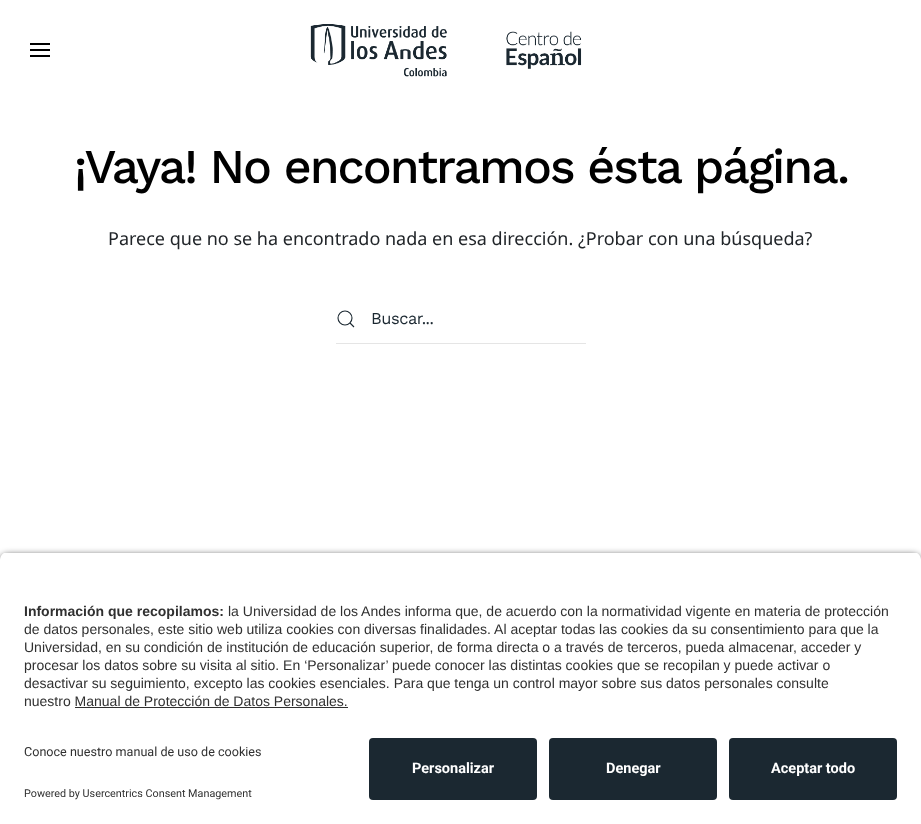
<svg xmlns="http://www.w3.org/2000/svg" width="921" height="824" viewBox="0 0 921 824">
  <defs>
    <clipPath id="clip1"><path d="M8 552H913C917.5 552 921 555.5 921 560V730H0V560C0 555.5 3.5 552 8 552Z"/></clipPath>
  </defs>
  <rect width="100%" height="100%" fill="#fff"/>
  <path d="M30 43h20v2H30z" fill="#000"/>
  <path d="M30 49h20v2H30z" fill="#000"/>
  <path d="M30 55h20v2H30z" fill="#000"/>
  <image x="310" y="24" width="137" height="53" href="img/1.png"/>
  <image x="506" y="31" width="76" height="38" href="img/2.png"/>
  <circle cx="345" cy="318" r="7" fill="none" stroke="#1b2831" stroke-width="1.1"/>
  <path d="M350 323L354 327Z" fill="none" stroke="#1b2831" stroke-width="1.1"/>
  <path d="M336 343h250v1H336z" fill="#e5e5e5"/>
  <rect y="555" width="921" height="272" rx="8" fill="#000000cc" filter="blur(3.5px)"/>
  <g clip-path="url(#clip1)">
    <path d="M0 553h921v177H0z" fill="#fff"/>
  </g>
  <path d="M75 707h273v1H75z" fill="#303030"/>
  <path d="M0 730h921v94H0z" fill="#fff"/>
  <rect x="369" y="738" width="168" height="62" rx="4" fill="#1b2831"/>
  <rect x="549" y="738" width="168" height="62" rx="4" fill="#1b2831"/>
  <rect x="729" y="738" width="168" height="62" rx="4" fill="#1b2831"/>
  <text x="74" y="183" font-family="Work Sans" font-size="48.4" font-weight="500" letter-spacing="-2" fill="#000">¡Vaya! No encontramos ésta página.</text>
  <text x="108" y="245" font-family="Noto Sans" font-size="18" fill="#212529">Parece que no se ha encontrado nada en esa dirección. ¿Probar con una búsqueda?</text>
  <text x="371" y="324" font-family="Work Sans" font-size="16.5" letter-spacing="-0.5" fill="#1b2831">Buscar...</text>
  <text x="24" y="616" font-family="Liberation Sans" font-size="14" font-weight="bold" fill="#303030">Información que recopilamos:</text>
  <g font-family="Liberation Sans" font-size="14" fill="#303030">
    <text x="228" y="616">la Universidad de los Andes informa que, de acuerdo con la normatividad vigente en materia de protección</text>
    <text x="24" y="634">de datos personales, este sitio web utiliza cookies con diversas finalidades. Al aceptar todas las cookies da su consentimiento para que la</text>
    <text x="24" y="652">Universidad, en su condición de institución de educación superior, de forma directa o a través de terceros, pueda almacenar, acceder y</text>
    <text x="24" y="670">procesar los datos sobre su visita al sitio. En ‘Personalizar’ puede conocer las distintas cookies que se recopilan y puede activar o</text>
    <text x="24" y="688">desactivar su seguimiento, excepto las cookies esenciales. Para que tenga un control mayor sobre sus datos personales consulte</text>
    <text x="24" y="706">nuestro Manual de Protección de Datos Personales.</text>
  </g>
  <text x="24" y="756" font-family="Roboto" font-size="12.6" fill="#303030">Conoce nuestro manual de uso de cookies</text>
  <text x="24" y="797" font-family="Roboto" font-size="10.8" fill="#303030">Powered by Usercentrics Consent Management</text>
  <g font-family="Roboto" font-size="14.5" font-weight="bold" fill="#fff">
    <text x="412" y="773">Personalizar</text>
    <text x="606" y="773">Denegar</text>
    <text x="771" y="773">Aceptar todo</text>
  </g>
</svg>
